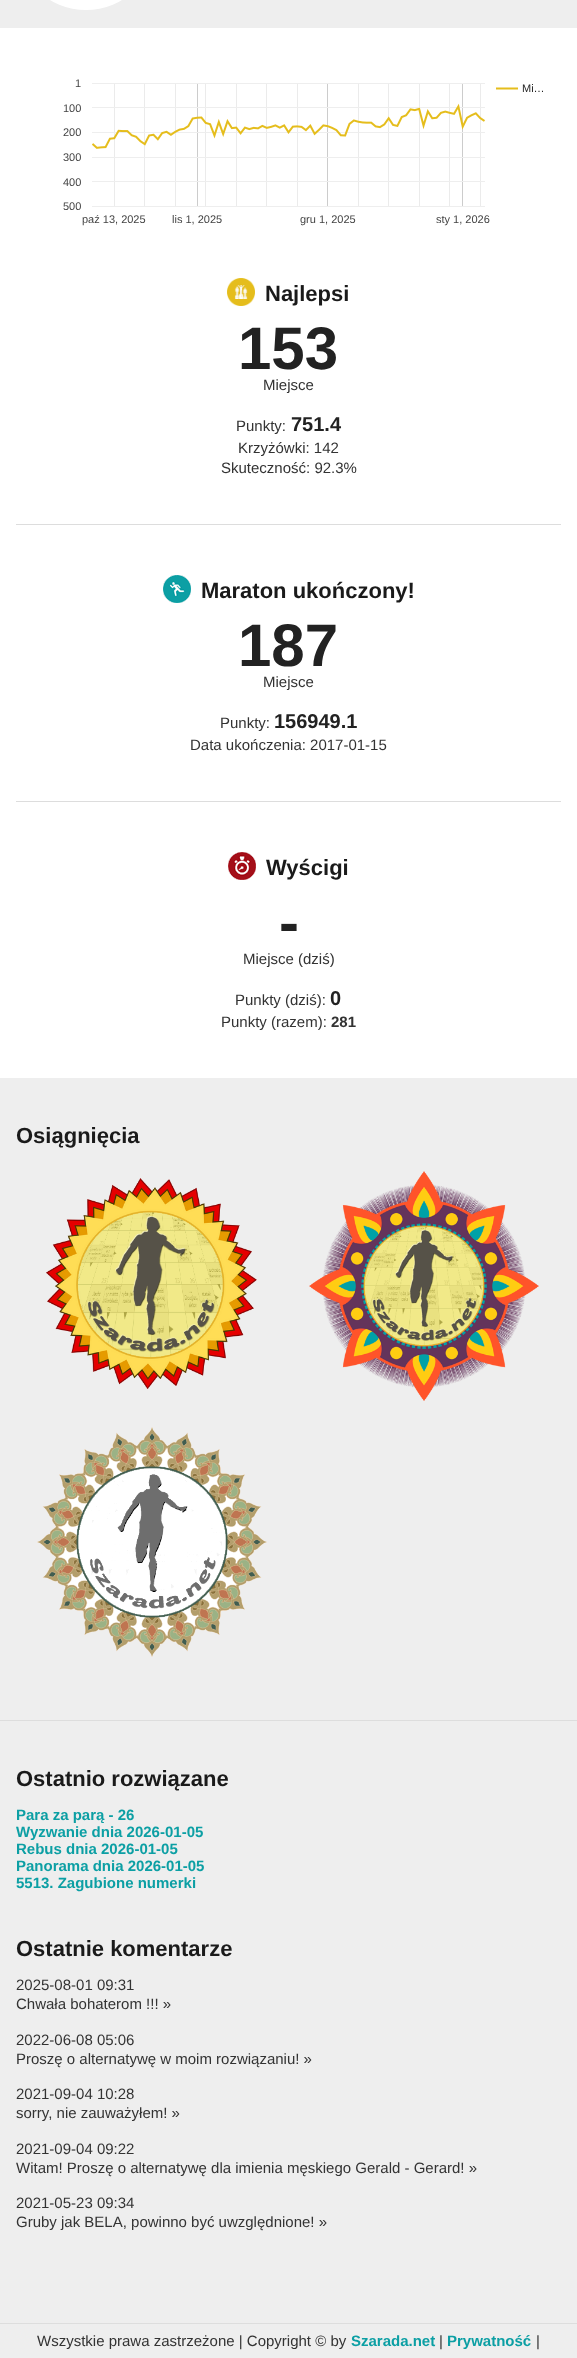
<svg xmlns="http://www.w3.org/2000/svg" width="577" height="2358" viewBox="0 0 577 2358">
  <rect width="100%" height="100%" fill="#fff"/>
  <path d="M0 0h577v28H0z" fill="#eee"/>
  <image x="50" y="0" width="72" height="10" href="img/1.png"/>
  <image x="92" y="83" width="426" height="124" href="img/2.png"/>
  <path d="M16 524h545v1H16z" fill="#ddd"/>
  <image x="227" y="278" width="28" height="28" href="img/3.png"/>
  <path d="M16 801h545v1H16z" fill="#ddd"/>
  <image x="163" y="575" width="28" height="28" href="img/4.png"/>
  <image x="228" y="852" width="28" height="28" href="img/5.png"/>
  <path d="M0 1078h577v642H0z" fill="#eee"/>
  <image x="46" y="1178" width="211" height="211" href="img/6.png"/>
  <image x="309" y="1171" width="230" height="230" href="img/7.png"/>
  <image x="37" y="1427" width="230" height="230" href="img/8.png"/>
  <path d="M0 1721h577v602H0z" fill="#eee"/>
  <path d="M0 1720h577v1H0z" fill="#ddd"/>
  <path d="M0 2324h577v34H0z" fill="#eee"/>
  <path d="M0 2323h577v1H0z" fill="#ddd"/>
  <text x="75" y="87" font-family="Liberation Sans" font-size="11" fill="#444">1</text>
  <text x="522" y="92" font-family="Liberation Sans" font-size="11" fill="#222">Mi…</text>
  <g font-family="Liberation Sans" font-size="11" fill="#444">
    <text x="63" y="112">100</text>
    <text x="63" y="136">200</text>
    <text x="63" y="161">300</text>
    <text x="63" y="186">400</text>
    <text x="63" y="210">500</text>
    <text x="82" y="223">paź 13, 2025</text>
    <text x="172" y="223">lis 1, 2025</text>
    <text x="300" y="223">gru 1, 2025</text>
    <text x="436" y="223">sty 1, 2026</text>
  </g>
  <text x="265" y="301" font-family="Liberation Sans" font-size="22" font-weight="bold" fill="#1a1a1a">Najlepsi</text>
  <text x="238" y="369" font-family="Liberation Sans" font-size="60" font-weight="bold" fill="#222">153</text>
  <g font-family="Liberation Sans" font-size="15" fill="#333">
    <text x="263" y="390">Miejsce</text>
    <text x="236" y="431">Punkty:</text>
  </g>
  <text x="291" y="431" font-family="Liberation Sans" font-size="20" font-weight="bold" fill="#222">751.4</text>
  <g font-family="Liberation Sans" font-size="15" fill="#333">
    <text x="238" y="453">Krzyżówki: 142</text>
    <text x="221" y="473">Skuteczność: 92.3%</text>
  </g>
  <text x="201" y="598" font-family="Liberation Sans" font-size="22" font-weight="bold" fill="#1a1a1a">Maraton ukończony!</text>
  <text x="238" y="666" font-family="Liberation Sans" font-size="60" font-weight="bold" fill="#222">187</text>
  <g font-family="Liberation Sans" font-size="15" fill="#333">
    <text x="263" y="687">Miejsce</text>
    <text x="220" y="728">Punkty:</text>
  </g>
  <text x="274" y="728" font-family="Liberation Sans" font-size="20" font-weight="bold" fill="#222">156949.1</text>
  <text x="190" y="750" font-family="Liberation Sans" font-size="15" fill="#333">Data ukończenia: 2017-01-15</text>
  <text x="266" y="875" font-family="Liberation Sans" font-size="22" font-weight="bold" fill="#1a1a1a">Wyścigi</text>
  <text x="279" y="943" font-family="Liberation Sans" font-size="60" font-weight="bold" fill="#222">-</text>
  <g font-family="Liberation Sans" font-size="15" fill="#333">
    <text x="243" y="964">Miejsce (dziś)</text>
    <text x="235" y="1005">Punkty (dziś):</text>
  </g>
  <text x="330" y="1005" font-family="Liberation Sans" font-size="20" font-weight="bold" fill="#222">0</text>
  <text x="221" y="1027" font-family="Liberation Sans" font-size="15" fill="#333">Punkty (razem):</text>
  <text x="331" y="1027" font-family="Liberation Sans" font-size="15" font-weight="bold" fill="#333">281</text>
  <g font-family="Liberation Sans" font-size="22" font-weight="bold" fill="#1a1a1a">
    <text x="16" y="1143">Osiągnięcia</text>
    <text x="16" y="1786">Ostatnio rozwiązane</text>
  </g>
  <g font-family="Liberation Sans" font-size="15" font-weight="bold" fill="#0c9fa4">
    <text x="16" y="1820">Para za parą - 26</text>
    <text x="16" y="1837">Wyzwanie dnia 2026-01-05</text>
    <text x="16" y="1854">Rebus dnia 2026-01-05</text>
    <text x="16" y="1871">Panorama dnia 2026-01-05</text>
    <text x="16" y="1888">5513. Zagubione numerki</text>
  </g>
  <text x="16" y="1956" font-family="Liberation Sans" font-size="22" font-weight="bold" fill="#1a1a1a">Ostatnie komentarze</text>
  <g font-family="Liberation Sans" font-size="15" fill="#333">
    <text x="16" y="1990">2025-08-01 09:31</text>
    <text x="16" y="2009">Chwała bohaterom !!! »</text>
    <text x="16" y="2045">2022-06-08 05:06</text>
    <text x="16" y="2064">Proszę o alternatywę w moim rozwiązaniu! »</text>
    <text x="16" y="2099">2021-09-04 10:28</text>
    <text x="16" y="2118">sorry, nie zauważyłem! »</text>
    <text x="16" y="2154">2021-09-04 09:22</text>
    <text x="16" y="2173">Witam! Proszę o alternatywę dla imienia męskiego Gerald - Gerard! »</text>
    <text x="16" y="2208">2021-05-23 09:34</text>
    <text x="16" y="2227">Gruby jak BELA, powinno być uwzględnione! »</text>
    <text x="37" y="2346">Wszystkie prawa zastrzeżone | Copyright © by</text>
  </g>
  <text x="351" y="2346" font-family="Liberation Sans" font-size="15" font-weight="bold" fill="#0c9fa4">Szarada.net</text>
  <text x="439" y="2346" font-family="Liberation Sans" font-size="15" fill="#333">|</text>
  <text x="447" y="2346" font-family="Liberation Sans" font-size="15" font-weight="bold" fill="#0c9fa4">Prywatność</text>
  <text x="536" y="2346" font-family="Liberation Sans" font-size="15" fill="#333">|</text>
</svg>
